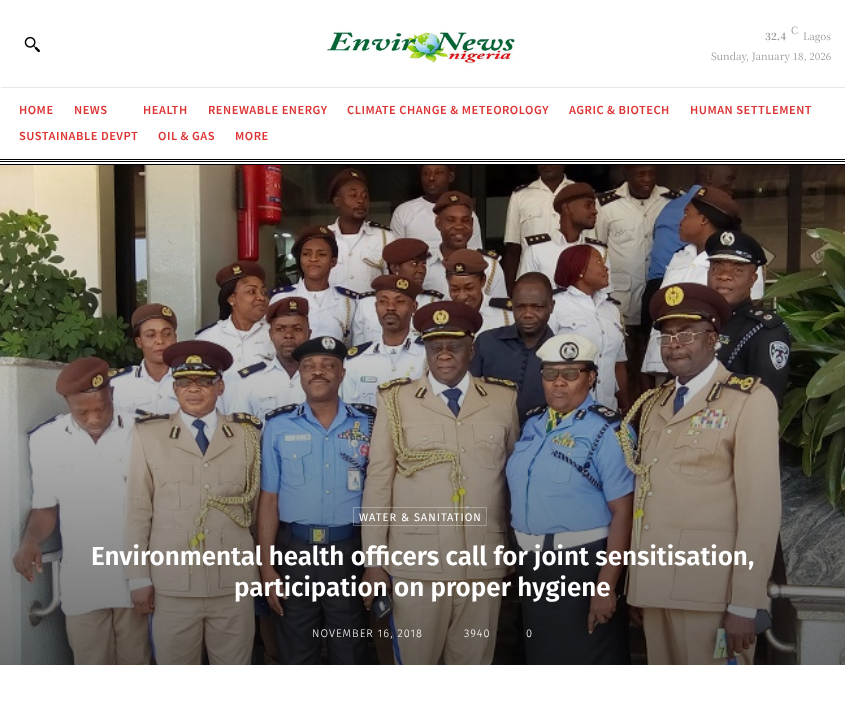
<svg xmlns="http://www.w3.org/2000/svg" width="845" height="724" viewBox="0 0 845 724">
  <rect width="100%" height="100%" fill="#fff"/>
  <image x="24" y="36" width="16" height="17" href="img/1.png"/>
  <image x="326" y="31" width="190" height="34" href="img/2.png"/>
  <path d="M1 87h844v1H1z" fill="#e8e8e8"/>
  <path d="M0 159h845v1H0z" fill="#000"/>
  <path d="M0 164h845v1H0z" fill="#000"/>
  <path d="M0 161h845v1H0z" fill="#000"/>
  <image x="0" y="165" width="845" height="500" href="img/3.png"/>
  <path d="M353.5 507.5h133v18H353.5z" fill="none" stroke="#ffffff4d"/>
  <text x="791" y="34" font-family="Noto Serif JP" font-size="10" fill="#999">C</text>
  <text x="765" y="40" font-family="Noto Serif JP" font-size="10" font-weight="bold" fill="#999">32.4</text>
  <g font-family="Noto Serif JP" font-size="10" fill="#999">
    <text x="803" y="40">Lagos</text>
    <text x="711" y="60">Sunday, January 18, 2026</text>
  </g>
  <g font-family="Noto Sans JP" font-size="11" font-weight="600" letter-spacing="0.5" fill="#d33">
    <text x="19" y="114">HOME</text>
    <text x="74" y="114">NEWS</text>
    <text x="143" y="114">HEALTH</text>
    <text x="208" y="114">RENEWABLE ENERGY</text>
    <text x="347" y="114">CLIMATE CHANGE &amp; METEOROLOGY</text>
    <text x="569" y="114">AGRIC &amp; BIOTECH</text>
    <text x="690" y="114">HUMAN SETTLEMENT</text>
    <text x="19" y="140">SUSTAINABLE DEVPT</text>
    <text x="158" y="140">OIL &amp; GAS</text>
    <text x="235" y="140">MORE</text>
  </g>
  <text x="359" y="521" font-family="Fira Sans" font-size="11" letter-spacing="1" fill="#fff">WATER &amp; SANITATION</text>
  <g font-family="Fira Sans" font-size="26" font-weight="600" fill="#fff">
    <text x="91" y="565">Environmental health officers call for joint sensitisation,</text>
    <text x="234" y="596">participation on proper hygiene</text>
  </g>
  <g font-family="Fira Sans" font-size="11" font-weight="300" letter-spacing="1" fill="#fff">
    <text x="312" y="637">NOVEMBER 16, 2018</text>
    <text x="464" y="637">3940</text>
    <text x="526" y="637">0</text>
  </g>
</svg>
